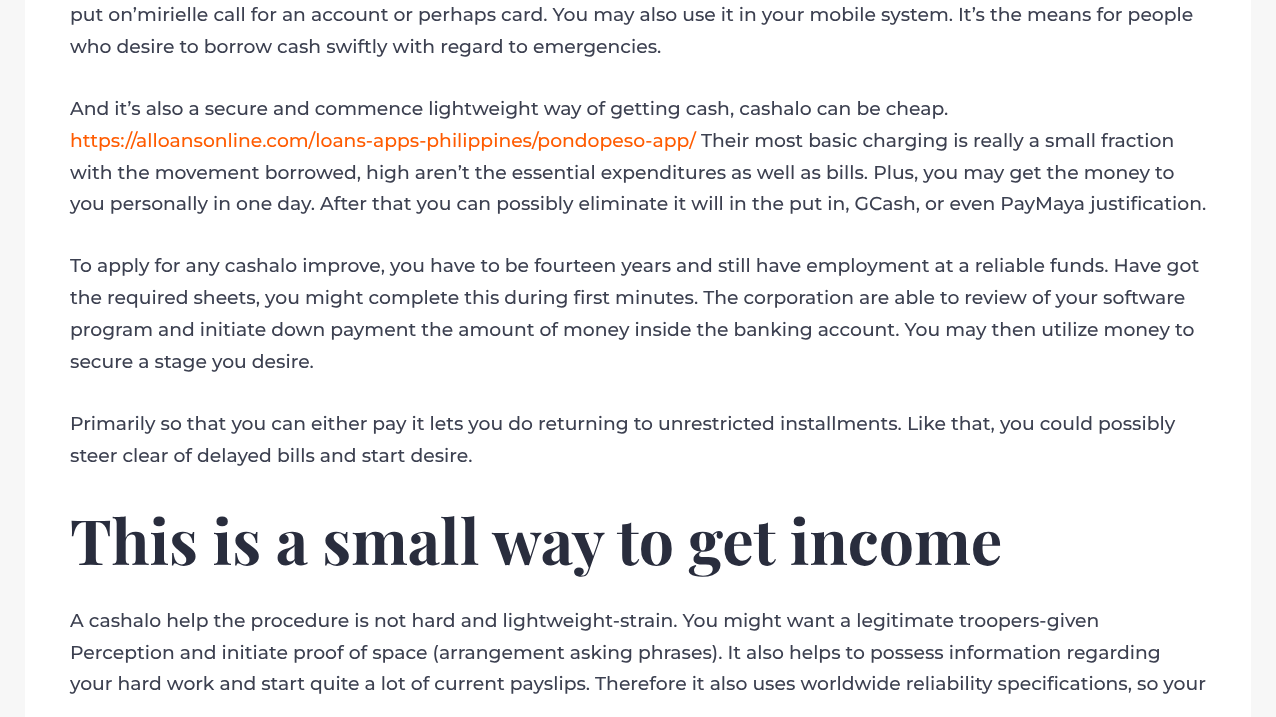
<svg xmlns="http://www.w3.org/2000/svg" width="1276" height="717" viewBox="0 0 1276 717">
  <rect width="100%" height="100%" fill="#f7f7f7"/>
  <path d="M25 0h1226v717H25z" fill="#fff"/>
  <g font-family="Montserrat" font-size="18.75" font-weight="500" fill="#3c4050">
    <text x="70" y="21">put on’mirielle call for an account or perhaps card. You may also use it in your mobile system. It’s the means for people</text>
    <text x="70" y="53">who desire to borrow cash swiftly with regard to emergencies.</text>
    <text x="70" y="115">And it’s also a secure and commence lightweight way of getting cash, cashalo can be cheap.</text>
  </g>
  <text x="70" y="147" font-family="Montserrat" font-size="18.75" font-weight="500" fill="#ff5b00">https://alloansonline.com/loans-apps-philippines/pondopeso-app/</text>
  <g font-family="Montserrat" font-size="18.75" font-weight="500" fill="#3c4050">
    <text x="701" y="147">Their most basic charging is really a small fraction</text>
    <text x="70" y="179">with the movement borrowed, high aren’t the essential expenditures as well as bills. Plus, you may get the money to</text>
    <text x="70" y="210">you personally in one day. After that you can possibly eliminate it will in the put in, GCash, or even PayMaya justification.</text>
    <text x="70" y="272">To apply for any cashalo improve, you have to be fourteen years and still have employment at a reliable funds. Have got</text>
    <text x="70" y="304">the required sheets, you might complete this during first minutes. The corporation are able to review of your software</text>
    <text x="70" y="336">program and initiate down payment the amount of money inside the banking account. You may then utilize money to</text>
    <text x="70" y="368">secure a stage you desire.</text>
    <text x="70" y="430">Primarily so that you can either pay it lets you do returning to unrestricted installments. Like that, you could possibly</text>
    <text x="70" y="462">steer clear of delayed bills and start desire.</text>
  </g>
  <text x="70" y="565" font-family="Playfair Display" font-size="62.5" font-weight="bold" fill="#292d3d">This is a small way to get income</text>
  <g font-family="Montserrat" font-size="18.75" font-weight="500" fill="#3c4050">
    <text x="70" y="627">A cashalo help the procedure is not hard and lightweight-strain. You might want a legitimate troopers-given</text>
    <text x="70" y="659">Perception and initiate proof of space (arrangement asking phrases). It also helps to possess information regarding</text>
    <text x="70" y="690">your hard work and start quite a lot of current payslips. Therefore it also uses worldwide reliability specifications, so your</text>
  </g>
</svg>
